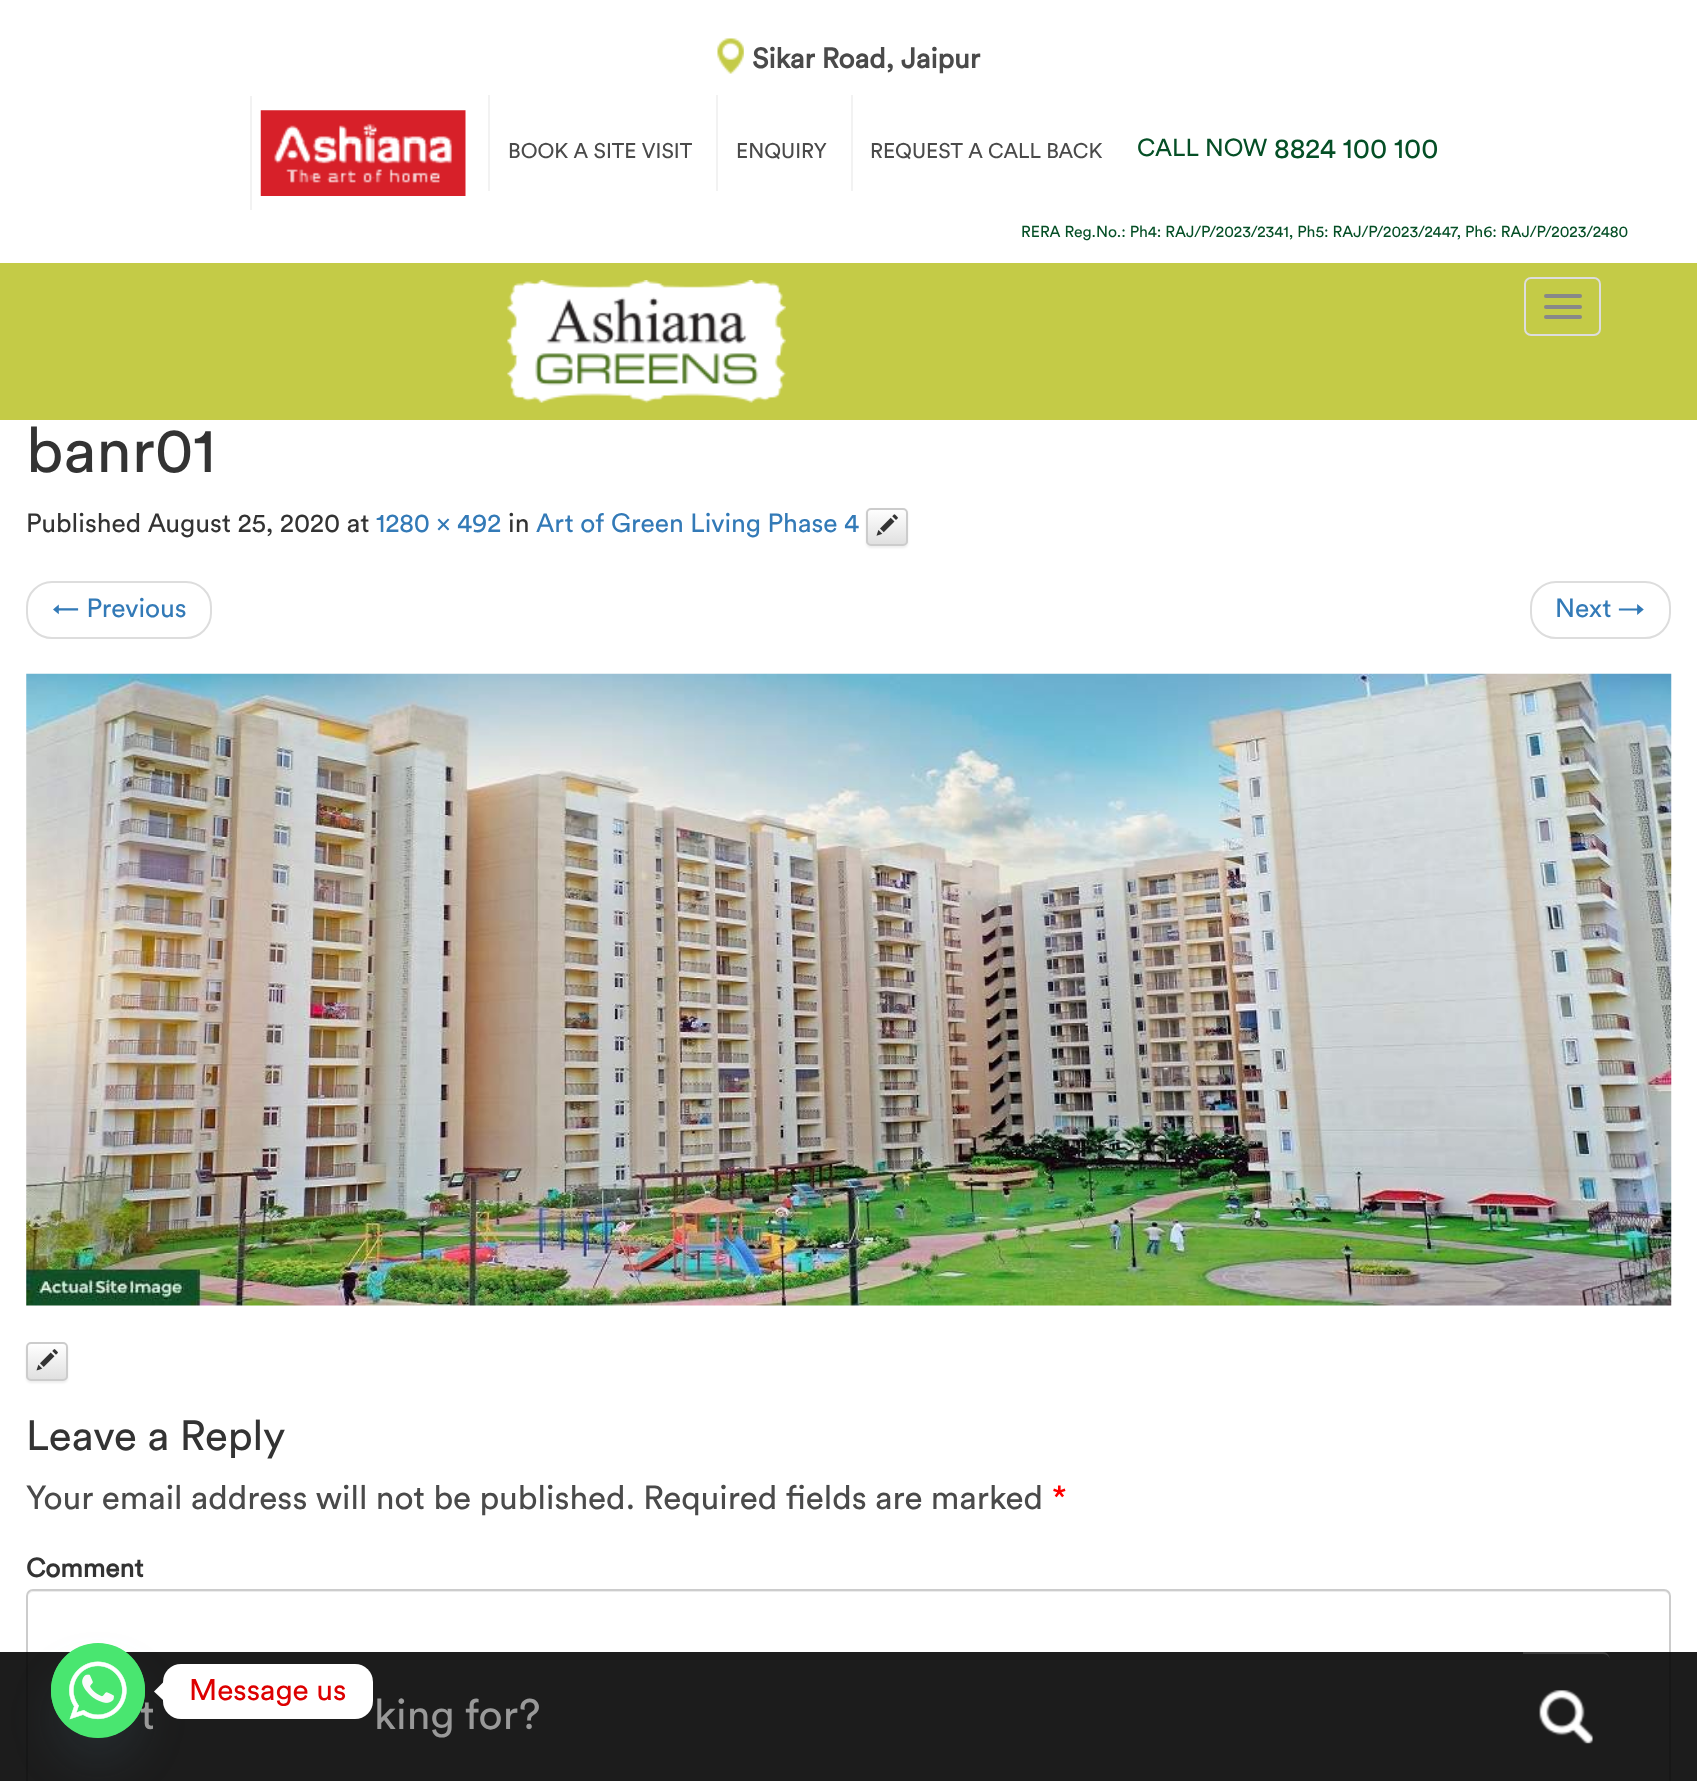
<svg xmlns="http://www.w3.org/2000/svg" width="1697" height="1781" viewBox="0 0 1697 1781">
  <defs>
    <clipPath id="clip1"><rect x="866" y="508" width="42" height="38" rx="5"/></clipPath>
    <linearGradient id="g1" gradientUnits="userSpaceOnUse" x1="887" y1="509" x2="887" y2="544"><stop offset="0" stop-color="#fff"/><stop offset="1" stop-color="#e0e0e0"/></linearGradient>
    <clipPath id="clip2"><rect x="26" y="1342" width="42" height="39" rx="5"/></clipPath>
    <linearGradient id="g2" gradientUnits="userSpaceOnUse" x1="47" y1="1344" x2="47" y2="1379"><stop offset="0" stop-color="#fff"/><stop offset="1" stop-color="#e0e0e0"/></linearGradient>
  </defs>
  <rect width="100%" height="100%" fill="#fff"/>
  <image x="717" y="38" width="27" height="36" href="img/1.png"/>
  <path d="M250 96h2v114H250z" fill="#f2f2f2"/>
  <image x="260" y="110" width="206" height="86" href="img/2.png"/>
  <path d="M488 95h2v96H488z" fill="#f2f2f2"/>
  <path d="M716 95h2v96H716z" fill="#f2f2f2"/>
  <path d="M851 95h2v96H851z" fill="#f2f2f2"/>
  <path d="M0 263h1697v157H0z" fill="#c4cb47"/>
  <image x="507" y="280" width="279" height="123" href="img/3.png"/>
  <rect x="1525" y="278" width="75" height="57" rx="6" fill="none" stroke="#ddd" stroke-width="2"/>
  <rect x="1544" y="294" width="38" height="4" rx="2" fill="#888"/>
  <rect x="1544" y="305" width="38" height="4" rx="2" fill="#888"/>
  <rect x="1544" y="315" width="38" height="4" rx="2" fill="#888"/>
  <rect x="866" y="509" width="42" height="39" rx="5" fill="#00000012" filter="blur(1px)"/>
  <g clip-path="url(#clip1)">
    <path d="M866 509h42v35H866z" fill="url(#g1)"/>
  </g>
  <path d="M872 511H903.5C907 512 906 516.5 906 518.5V542.5C906.5 542 907 541 907 540V513C907 511 905 509 903 509H872C870 509 868 511 868 513V514C868 513 870 511 872 511Z" fill="#ffffff26"/>
  <rect x="867" y="509" width="40" height="36" rx="4" fill="none" stroke="#ccc" stroke-width="2"/>
  <image x="876" y="514" width="22" height="22" href="img/4.png"/>
  <rect x="27" y="582" width="184" height="56" rx="25" fill="none" stroke="#ddd" stroke-width="2"/>
  <rect x="1531" y="582" width="139" height="56" rx="25" fill="none" stroke="#ddd" stroke-width="2"/>
  <image x="26" y="673" width="1646" height="633" href="img/5.png"/>
  <rect x="26" y="1344" width="42" height="39" rx="5" fill="#00000012" filter="blur(1px)"/>
  <g clip-path="url(#clip2)">
    <path d="M26 1344h42v35H26z" fill="url(#g2)"/>
  </g>
  <path d="M32 1346H58C60.5 1346 66 1345 66 1349V1377.5C66.5 1377 67 1376 67 1375V1348C67 1346 65 1344 63 1344H32C30 1344 28 1346 28 1348V1349C28 1347 30 1346 32 1346Z" fill="#ffffff26"/>
  <rect x="27" y="1343" width="40" height="37" rx="4" fill="none" stroke="#ccc" stroke-width="2"/>
  <image x="36" y="1349" width="22" height="22" href="img/6.png"/>
  <path d="M33 1592H1664C1667 1592 1670 1595 1670 1598C1670 1595 1669 1591 1665 1591H33C29 1591 28 1595 28 1598C28 1595 30 1592 33 1592Z" fill="#ececec"/>
  <rect x="27" y="1590" width="1643" height="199" rx="6" fill="none" stroke="#ccc" stroke-width="2"/>
  <path d="M0 1652h1697v129H0z" fill="#030303e6"/>
  <rect x="51" y="1671" width="94" height="95" rx="47" fill="#49687e29" filter="blur(21px)"/>
  <rect x="163" y="1664" width="210" height="55" rx="18" fill="#fff"/>
  <path d="M163 1682.5V1700L154 1691.5Z" fill="#fff"/>
  <image x="1539" y="1690" width="54" height="54" href="img/8.png"/>
  <path d="M1523 1652V1654H1603C1607 1654 1610 1657 1610 1661C1610 1657 1608 1652 1603 1652Z" fill="#3d3d3d"/>
  <text x="752" y="68" font-family="Circular" font-size="28" font-weight="bold" fill="#4a4a4a">Sikar Road, Jaipur</text>
  <g font-family="Circular" font-size="21" fill="#4a4a4a">
    <text x="508" y="158">BOOK A SITE VISIT</text>
    <text x="736" y="158">ENQUIRY</text>
    <text x="870" y="158">REQUEST A CALL BACK</text>
  </g>
  <text x="1137" y="156" font-family="Circular" font-size="24.5" fill="#054f26">CALL NOW</text>
  <text x="1274" y="158" font-family="Circular" font-size="28" fill="#054f26">8824 100 100</text>
  <text x="1021" y="237" font-family="Circular" font-size="15.75" fill="#054f26">RERA Reg.No.: Ph4: RAJ/P/2023/2341, Ph5: RAJ/P/2023/2447, Ph6: RAJ/P/2023/2480</text>
  <text x="26" y="472" font-family="Circular" font-size="63" fill="#333">banr01</text>
  <text x="26" y="532" font-family="Circular" font-size="26.25" fill="#333">Published August 25, 2020 at</text>
  <text x="376" y="532" font-family="Circular" font-size="26.25" fill="#337ab7">1280 × 492</text>
  <text x="508" y="532" font-family="Circular" font-size="26.25" fill="#333">in</text>
  <g font-family="Circular" font-size="26.25" fill="#337ab7">
    <text x="536" y="532">Art of Green Living Phase 4</text>
    <text x="53" y="617">← Previous</text>
    <text x="1555" y="617">Next →</text>
  </g>
  <text x="26" y="1450" font-family="Circular" font-size="42" fill="#333">Leave a Reply</text>
  <text x="26" y="1509" font-family="Circular" font-size="33.25" fill="#4a4a4a">Your email address will not be published. Required fields are marked</text>
  <text x="1052" y="1509" font-family="Circular" font-size="33.25" fill="#f00">*</text>
  <text x="26" y="1577" font-family="Circular" font-size="26.25" font-weight="bold" fill="#333">Comment</text>
  <text x="189" y="1700" font-family="Circular" font-size="29.75" fill="#d00">Message us</text>
  <text x="140" y="1729" font-family="Circular" font-size="42" fill="#999">t</text>
  <rect x="51" y="1643" width="94" height="95" rx="47" fill="#49e670"/>
  <image x="51" y="1643" width="94" height="95" href="img/7.png"/>
  <text x="374" y="1729" font-family="Circular" font-size="42" fill="#999">king for?</text>
</svg>
